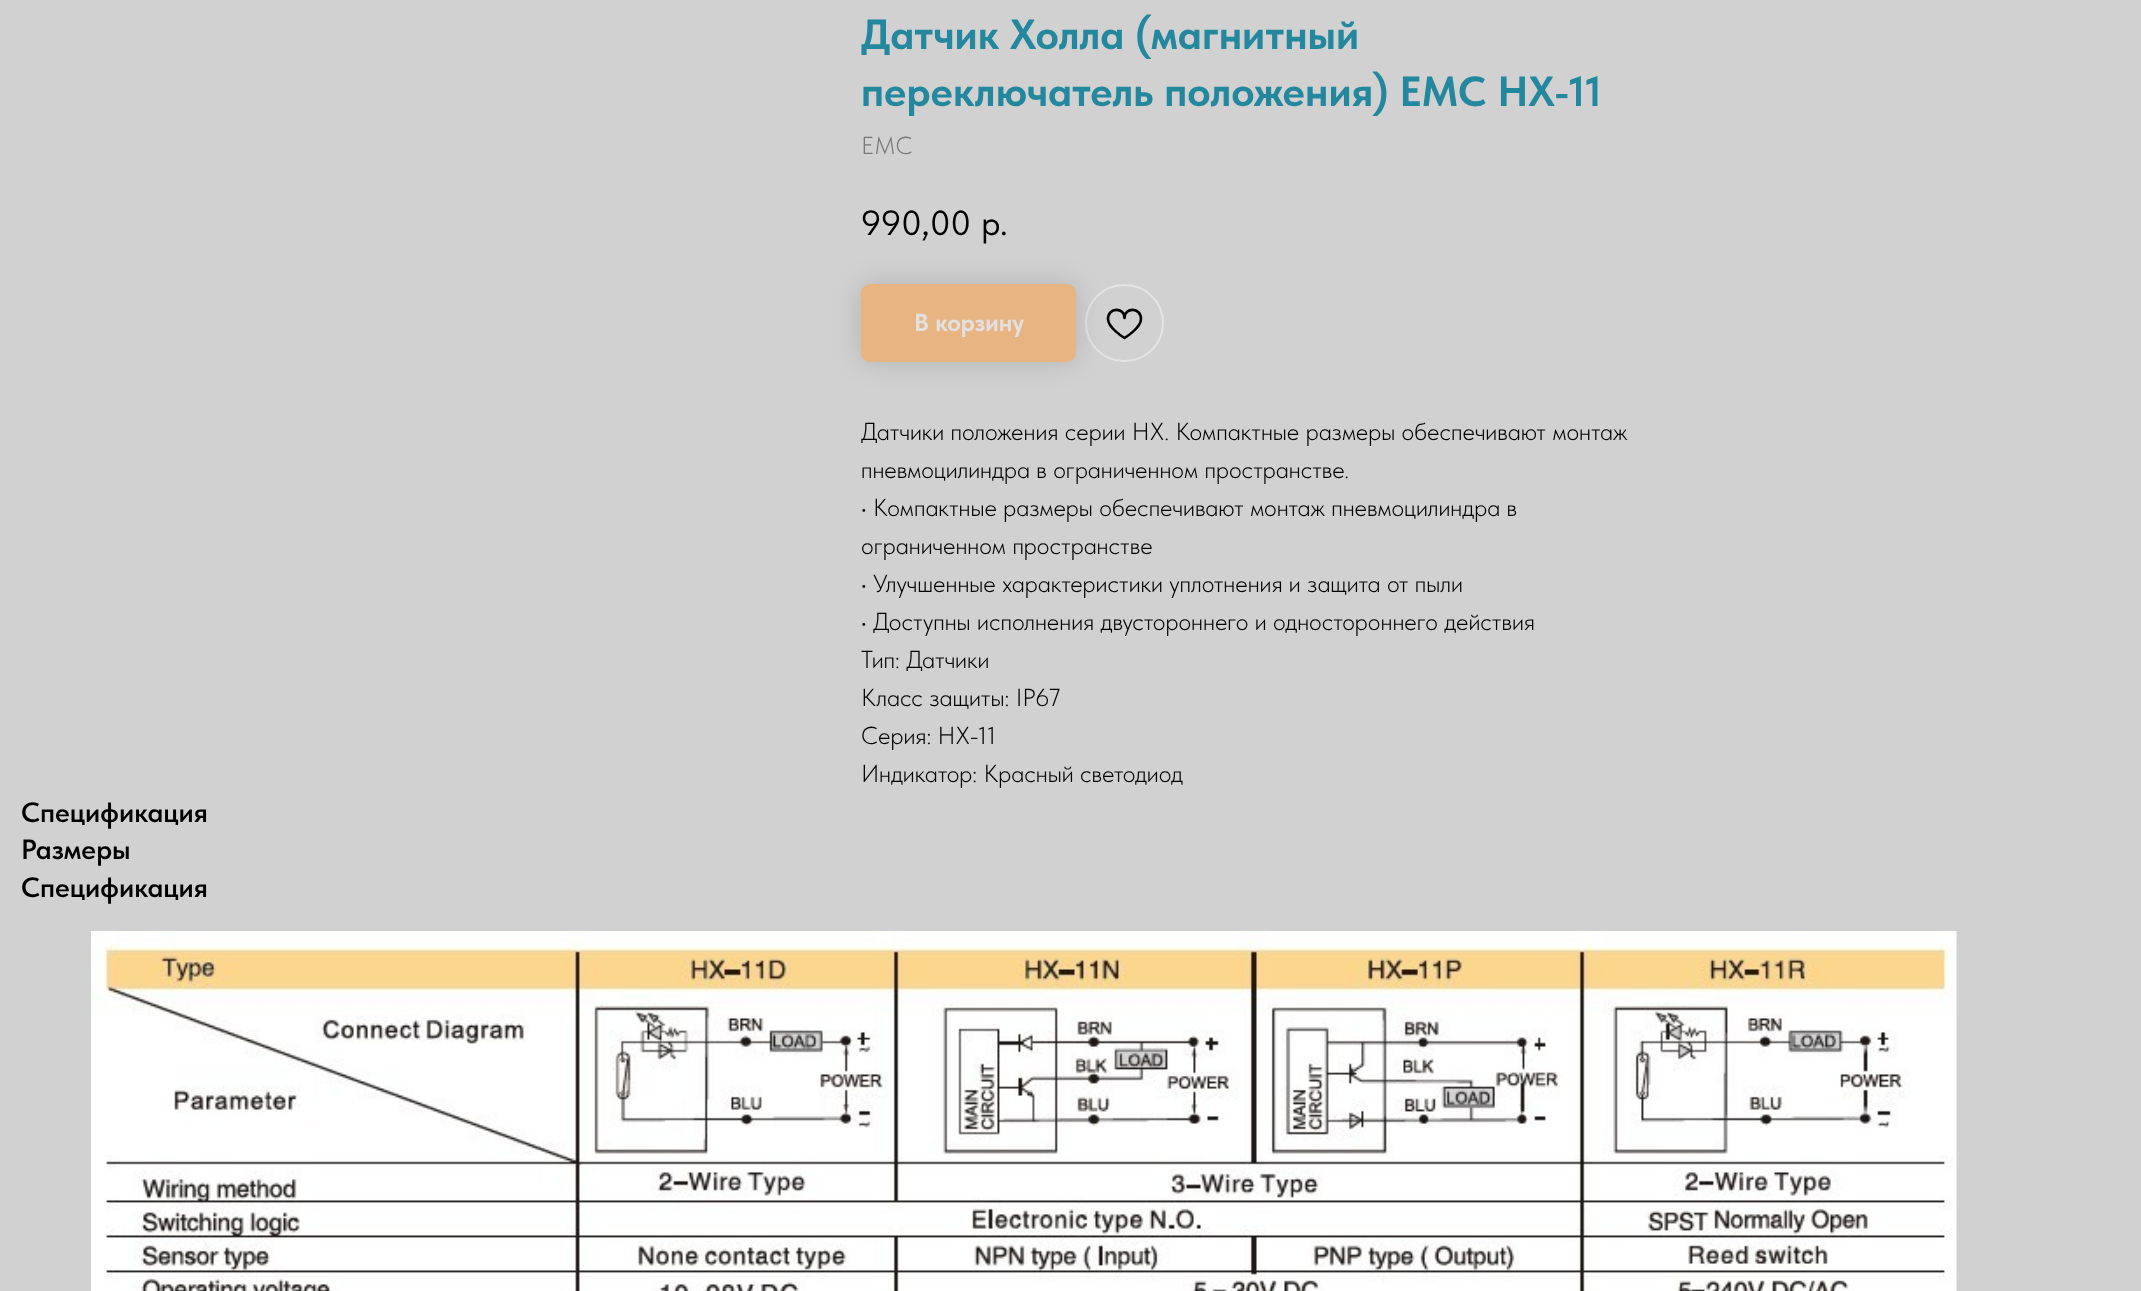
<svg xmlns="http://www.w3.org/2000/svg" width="2141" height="1291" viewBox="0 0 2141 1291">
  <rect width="100%" height="100%" fill="#d1d1d1"/>
  <rect x="1086" y="285" width="77" height="76" rx="38" fill="none" stroke="#e4e4e4" stroke-width="2"/>
  <path d="M1141 319C1141 328 1124.5 338 1124.5 338C1124.5 338 1108 328 1108 319C1108 307 1124.5 307 1124.5 318C1124.5 307 1141 307 1141 319Z" fill="none" stroke="#000" stroke-width="2.6" stroke-linejoin="round"/>
  <rect x="861" y="284" width="215" height="78" rx="9" fill="#00000026" filter="blur(13px)"/>
  <rect x="861" y="284" width="215" height="78" rx="9" fill="#e8b582"/>
  <image x="91" y="931" width="1866" height="360" href="img/1.png"/>
  <g font-family="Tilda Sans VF" font-size="42" font-weight="bold" fill="#23879e">
    <text x="861" y="49">Датчик Холла (магнитный</text>
    <text x="861" y="106">переключатель положения) EMC HX-11</text>
  </g>
  <text x="861" y="154" font-family="Tilda Sans VF" font-size="24.5" font-weight="300" fill="#777">EMC</text>
  <g font-family="Tilda Sans VF" font-size="35" fill="#000">
    <text x="861" y="235">990,00</text>
    <text x="981" y="235">р.</text>
  </g>
  <text x="914" y="331" font-family="Tilda Sans VF" font-size="24.5" font-weight="bold" fill="#e1e1e1">В корзину</text>
  <g font-family="Tilda Sans VF" font-size="24.5" font-weight="300" fill="#000">
    <text x="861" y="440">Датчики положения серии HX. Компактные размеры обеспечивают монтаж</text>
    <text x="861" y="478">пневмоцилиндра в ограниченном пространстве.</text>
    <text x="861" y="516">• Компактные размеры обеспечивают монтаж пневмоцилиндра в</text>
    <text x="861" y="554">ограниченном пространстве</text>
    <text x="861" y="592">• Улучшенные характеристики уплотнения и защита от пыли</text>
    <text x="861" y="630">• Доступны исполнения двустороннего и одностороннего действия</text>
    <text x="861" y="668">Тип: Датчики</text>
    <text x="861" y="706">Класс защиты: IP67</text>
    <text x="861" y="744">Серия: HX-11</text>
    <text x="861" y="782">Индикатор: Красный светодиод</text>
  </g>
  <g font-family="Tilda Sans VF" font-size="28" font-weight="600" fill="#000">
    <text x="21" y="822">Спецификация</text>
    <text x="21" y="859">Размеры</text>
    <text x="21" y="897">Спецификация</text>
  </g>
</svg>
